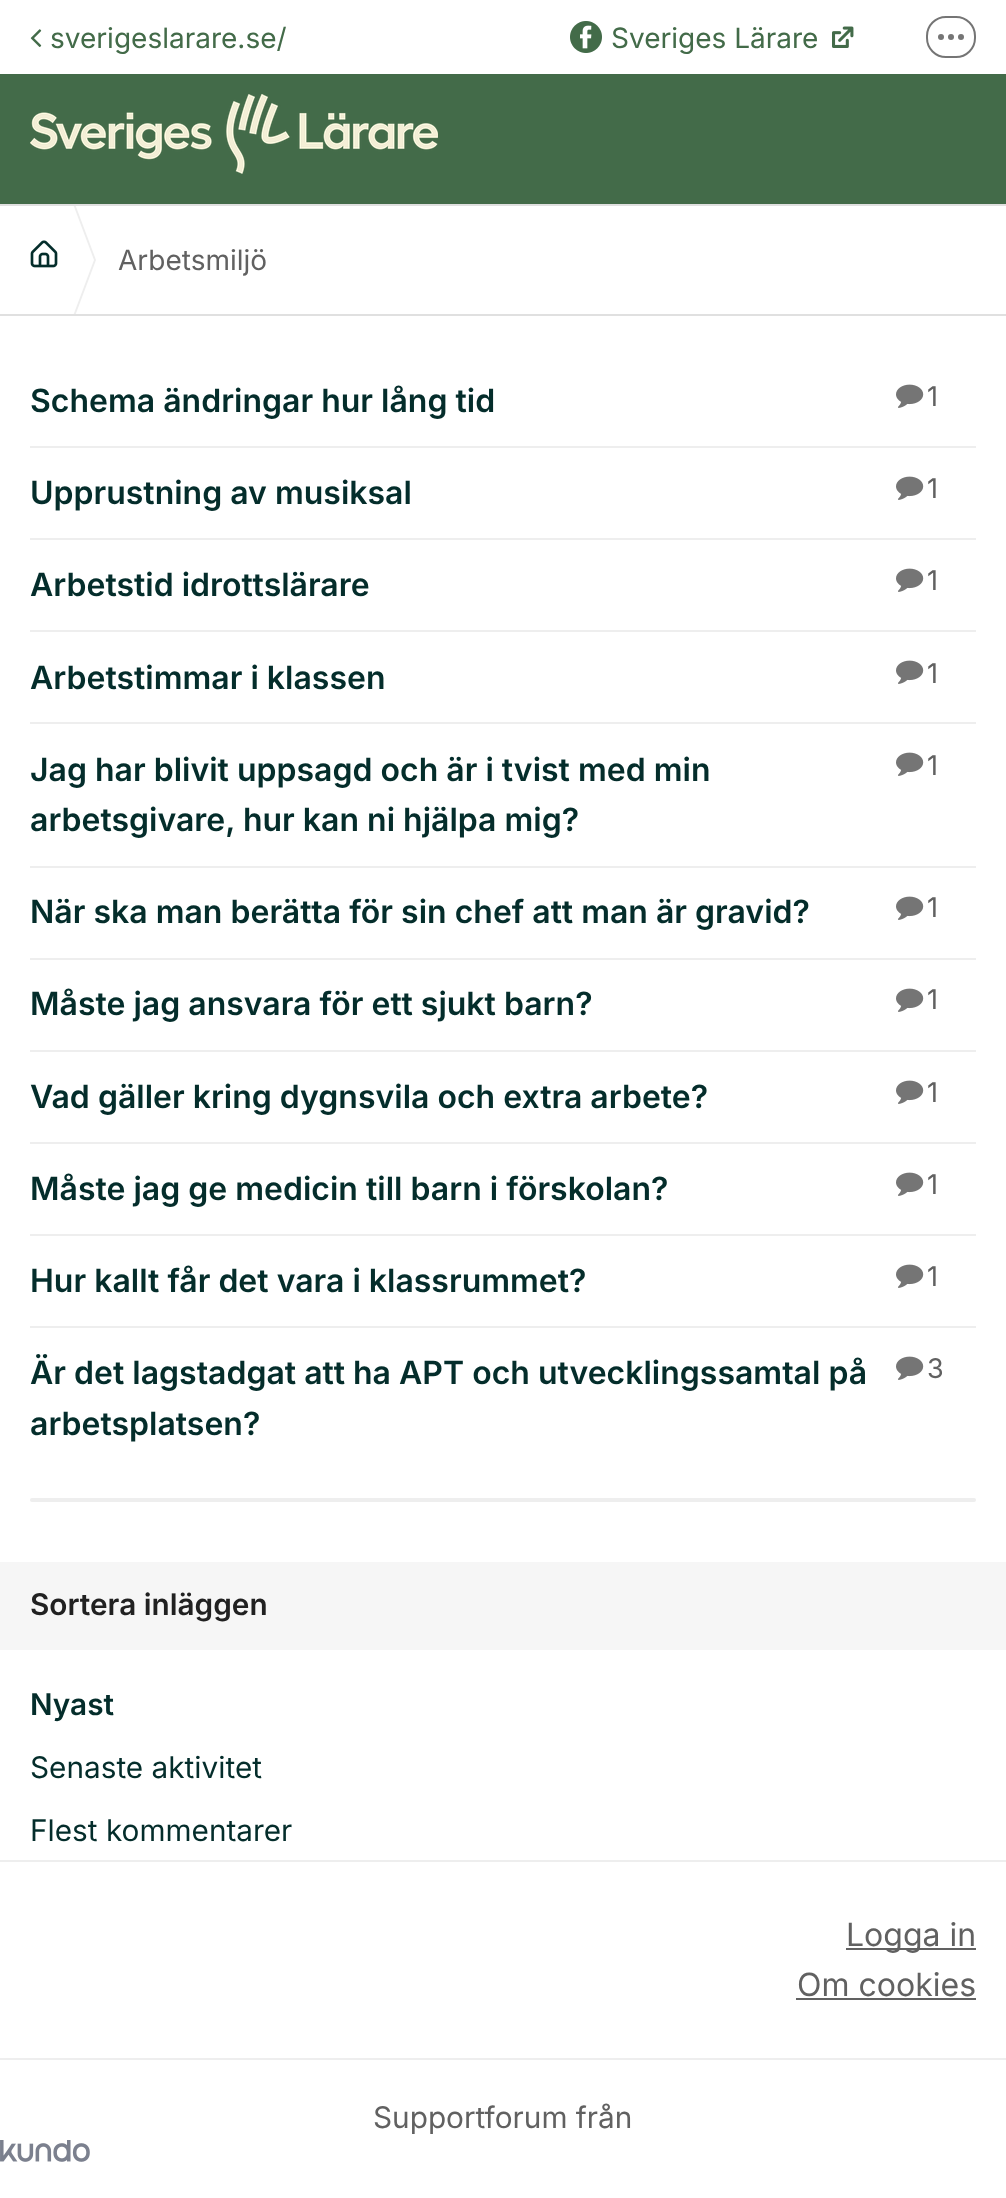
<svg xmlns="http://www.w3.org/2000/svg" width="1006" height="2198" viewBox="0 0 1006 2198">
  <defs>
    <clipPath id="clip1"><path d="M0 206h1006v108H0z"/></clipPath>
  </defs>
  <rect width="100%" height="100%" fill="#fff"/>
  <image x="30" y="29" width="12" height="18" href="img/1.png"/>
  <image x="570" y="21" width="32" height="32" href="img/2.png"/>
  <image x="832" y="26" width="22" height="22" href="img/3.png"/>
  <rect x="927" y="17" width="48" height="40" rx="19" fill="none" stroke="#757575" stroke-width="2"/>
  <circle cx="941" cy="37" r="3" fill="#757575"/>
  <circle cx="951" cy="37" r="3" fill="#757575"/>
  <circle cx="961" cy="37" r="3" fill="#757575"/>
  <path d="M0 74h1006v130H0z" fill="#436b49"/>
  <image x="30" y="94" width="408" height="80" href="img/4.png"/>
  <path d="M0 204h1006v2H0z" fill="#e0e0e0"/>
  <path d="M0 314h1006v2H0z" fill="#e0e0e0"/>
  <g clip-path="url(#clip1)">
    <path d="M66 340V180L96 260Z" fill="#eee"/>
    <path d="M64 340V180L94 260Z" fill="#fff"/>
  </g>
  <image x="30" y="240" width="28" height="28" href="img/5.png"/>
  <image x="896" y="384" width="28" height="24" href="img/6.png"/>
  <path d="M30 446h946v2H30z" fill="#eee"/>
  <image x="896" y="476" width="28" height="24" href="img/6.png"/>
  <path d="M30 538h946v2H30z" fill="#eee"/>
  <image x="896" y="568" width="28" height="24" href="img/6.png"/>
  <path d="M30 630h946v2H30z" fill="#eee"/>
  <image x="896" y="660" width="28" height="24" href="img/6.png"/>
  <path d="M30 722h946v2H30z" fill="#eee"/>
  <image x="896" y="752" width="28" height="24" href="img/6.png"/>
  <path d="M30 866h946v2H30z" fill="#eee"/>
  <image x="896" y="896" width="28" height="24" href="img/6.png"/>
  <path d="M30 958h946v2H30z" fill="#eee"/>
  <image x="896" y="988" width="28" height="24" href="img/6.png"/>
  <path d="M30 1050h946v2H30z" fill="#eee"/>
  <image x="896" y="1080" width="28" height="24" href="img/6.png"/>
  <path d="M30 1142h946v2H30z" fill="#eee"/>
  <image x="896" y="1172" width="28" height="24" href="img/6.png"/>
  <path d="M30 1234h946v2H30z" fill="#eee"/>
  <image x="896" y="1264" width="28" height="24" href="img/6.png"/>
  <path d="M30 1326h946v2H30z" fill="#eee"/>
  <image x="896" y="1356" width="28" height="24" href="img/6.png"/>
  <rect x="30" y="1498" width="946" height="4" rx="2" fill="#eee"/>
  <path d="M0 1562h1006v88H0z" fill="#f6f6f6"/>
  <path d="M0 1860h1006v2H0z" fill="#eee"/>
  <path d="M846 1948h130v2H846z" fill="#616161"/>
  <path d="M796 1998h180v2H796z" fill="#616161"/>
  <path d="M0 2058h1006v2H0z" fill="#eee"/>
  <image x="0" y="2140" width="90" height="22" href="img/7.png"/>
  <g font-family="Inter" font-size="28" fill="#436b49">
    <text x="50" y="48">sverigeslarare.se/</text>
    <text x="611" y="48">Sveriges Lärare</text>
  </g>
  <text x="118" y="270" font-family="Inter" font-size="28" fill="#616161">Arbetsmiljö</text>
  <text x="30" y="412" font-family="Inter" font-size="32" font-weight="600" fill="#042d2b">Schema ändringar hur lång tid</text>
  <text x="927" y="406" font-family="Inter" font-size="27" fill="#616161">1</text>
  <text x="30" y="504" font-family="Inter" font-size="32" font-weight="600" fill="#042d2b">Upprustning av musiksal</text>
  <text x="927" y="498" font-family="Inter" font-size="27" fill="#616161">1</text>
  <text x="30" y="596" font-family="Inter" font-size="32" font-weight="600" fill="#042d2b">Arbetstid idrottslärare</text>
  <text x="927" y="590" font-family="Inter" font-size="27" fill="#616161">1</text>
  <text x="30" y="689" font-family="Inter" font-size="32" font-weight="600" fill="#042d2b">Arbetstimmar i klassen</text>
  <text x="927" y="683" font-family="Inter" font-size="27" fill="#616161">1</text>
  <text x="30" y="781" font-family="Inter" font-size="32" font-weight="600" fill="#042d2b">Jag har blivit uppsagd och är i tvist med min</text>
  <text x="927" y="775" font-family="Inter" font-size="27" fill="#616161">1</text>
  <g font-family="Inter" font-size="32" font-weight="600" fill="#042d2b">
    <text x="30" y="831">arbetsgivare, hur kan ni hjälpa mig?</text>
    <text x="30" y="923">När ska man berätta för sin chef att man är gravid?</text>
  </g>
  <text x="927" y="917" font-family="Inter" font-size="27" fill="#616161">1</text>
  <text x="30" y="1015" font-family="Inter" font-size="32" font-weight="600" fill="#042d2b">Måste jag ansvara för ett sjukt barn?</text>
  <text x="927" y="1009" font-family="Inter" font-size="27" fill="#616161">1</text>
  <text x="30" y="1108" font-family="Inter" font-size="32" font-weight="600" fill="#042d2b">Vad gäller kring dygnsvila och extra arbete?</text>
  <text x="927" y="1102" font-family="Inter" font-size="27" fill="#616161">1</text>
  <text x="30" y="1200" font-family="Inter" font-size="32" font-weight="600" fill="#042d2b">Måste jag ge medicin till barn i förskolan?</text>
  <text x="927" y="1194" font-family="Inter" font-size="27" fill="#616161">1</text>
  <text x="30" y="1292" font-family="Inter" font-size="32" font-weight="600" fill="#042d2b">Hur kallt får det vara i klassrummet?</text>
  <text x="927" y="1286" font-family="Inter" font-size="27" fill="#616161">1</text>
  <text x="30" y="1384" font-family="Inter" font-size="32" font-weight="600" fill="#042d2b">Är det lagstadgat att ha APT och utvecklingssamtal på</text>
  <text x="927" y="1378" font-family="Inter" font-size="27" fill="#616161">3</text>
  <text x="30" y="1435" font-family="Inter" font-size="32" font-weight="600" fill="#042d2b">arbetsplatsen?</text>
  <text x="30" y="1615" font-family="Inter" font-size="29.75" font-weight="600" fill="#212121">Sortera inläggen</text>
  <text x="30" y="1715" font-family="Inter" font-size="29.75" font-weight="600" fill="#042d2b">Nyast</text>
  <g font-family="Inter" font-size="29.75" fill="#042d2b">
    <text x="30" y="1778">Senaste aktivitet</text>
    <text x="30" y="1841">Flest kommentarer</text>
  </g>
  <g font-family="Inter" font-size="32" fill="#616161">
    <text x="846" y="1946">Logga in</text>
    <text x="797" y="1996">Om cookies</text>
  </g>
  <text x="373" y="2128" font-family="Inter" font-size="29.75" fill="#616161">Supportforum från</text>
</svg>
